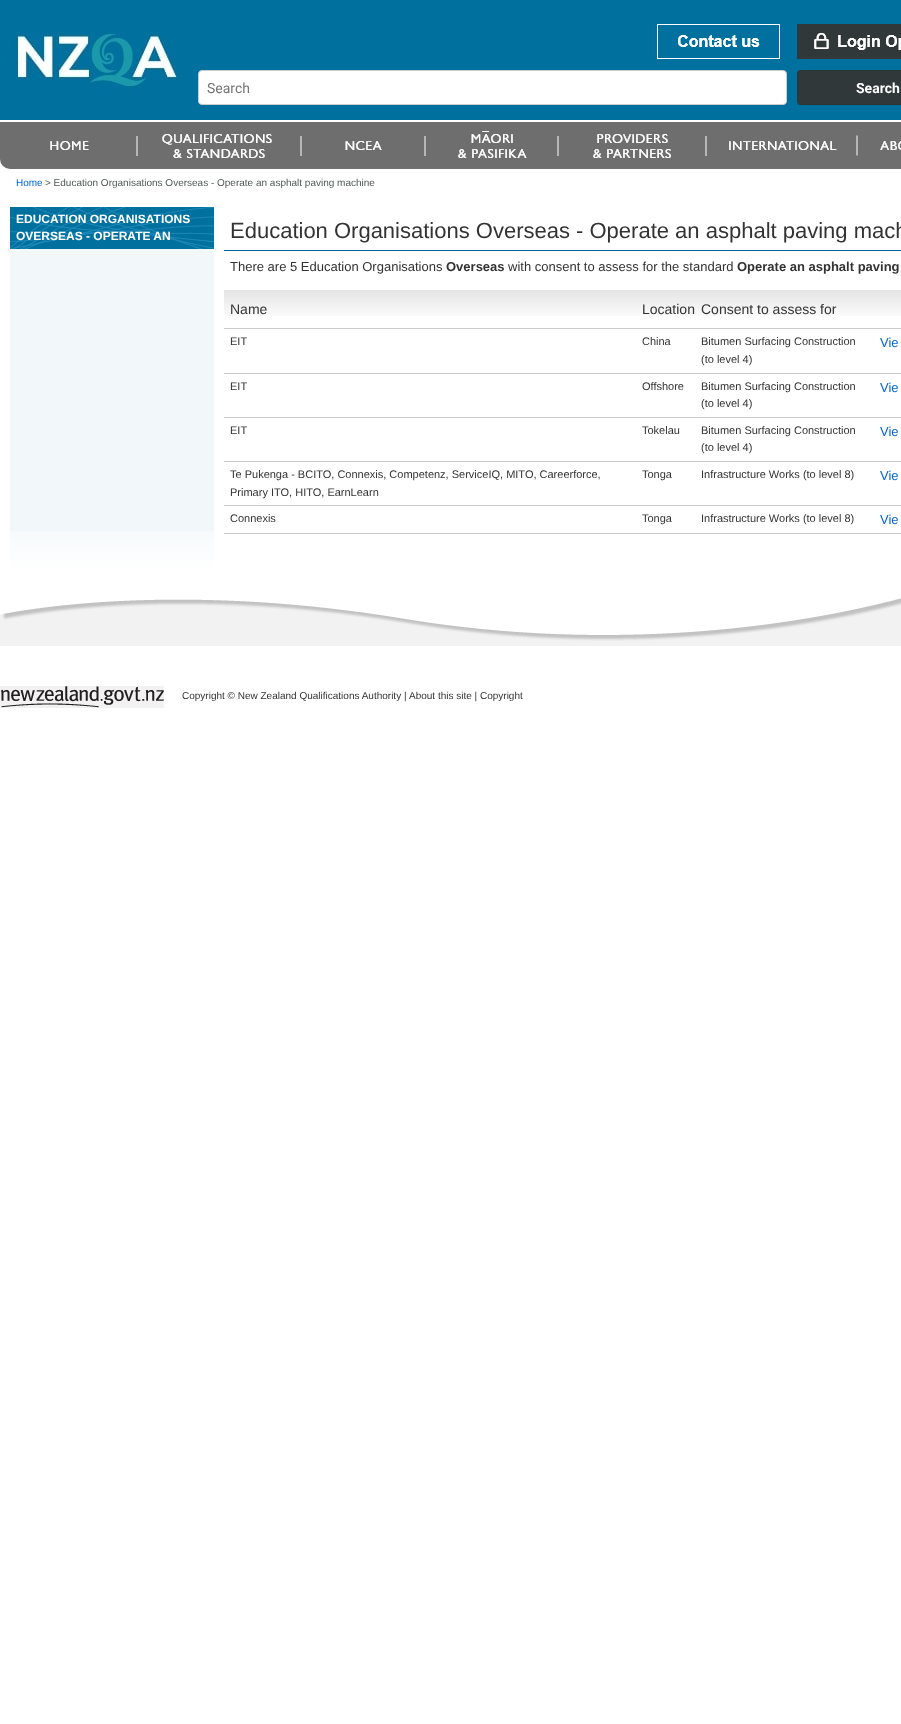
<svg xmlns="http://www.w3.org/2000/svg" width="901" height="1724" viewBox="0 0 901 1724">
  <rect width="100%" height="100%" fill="#fff"/>
  <image x="0" y="0" width="901" height="120" href="img/1.png"/>
  <image x="657" y="24" width="123" height="35" href="img/2.png"/>
  <image x="797" y="24" width="104" height="35" href="img/3.png"/>
  <rect x="198.5" y="70.5" width="588" height="34" rx="3.5" fill="#fff" stroke="#ccc"/>
  <path d="M797 101C797 103 798 105 800 106H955C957 105 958 103 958 101C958 103 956 105 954 105H801C799 105 797 103 797 101Z" fill="#036e9a"/>
  <rect x="797" y="70" width="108" height="35" rx="4" fill="#30383a"/>
  <path d="M797.5 70.5h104v34H797.5z" fill="none" stroke="#0000000d"/>
  <image x="0" y="122" width="901" height="47" href="img/4.png"/>
  <path d="M10 249h204v282H10z" fill="#f2f8fa"/>
  <image x="10" y="207" width="204" height="42" href="img/5.png"/>
  <image x="10" y="531" width="204" height="45" href="img/6.png"/>
  <path d="M224 250h677v1H224z" fill="#069"/>
  <image x="874" y="290" width="27" height="26" href="img/7.png"/>
  <path d="M224 328h677v1H224z" fill="#ccc"/>
  <image x="224" y="290" width="412" height="26" href="img/8.png"/>
  <image x="636" y="290" width="59" height="26" href="img/9.png"/>
  <image x="695" y="290" width="179" height="26" href="img/10.png"/>
  <path d="M224 373h677v1H224z" fill="#ccc"/>
  <path d="M224 417h677v1H224z" fill="#ccc"/>
  <path d="M224 461h677v1H224z" fill="#ccc"/>
  <path d="M224 505h677v1H224z" fill="#ccc"/>
  <path d="M224 533h677v1H224z" fill="#ccc"/>
  <image x="0" y="598" width="901" height="48" href="img/11.png"/>
  <image x="0" y="686" width="164" height="22" href="img/12.png"/>
  <text x="207" y="93" font-family="Roboto" font-size="14" fill="#757575">Search</text>
  <text x="856" y="93" font-family="Roboto" font-size="14" font-weight="bold" fill="#fff">Search</text>
  <text x="16" y="186" font-family="Liberation Sans" font-size="10" fill="#0064dd">Home</text>
  <text x="45" y="186" font-family="Liberation Sans" font-size="10" fill="#525858">&gt; Education Organisations Overseas - Operate an asphalt paving machine</text>
  <g font-family="Liberation Sans" font-size="12" font-weight="bold" fill="#fff">
    <text x="16" y="223">EDUCATION ORGANISATIONS</text>
    <text x="16" y="240">OVERSEAS - OPERATE AN</text>
  </g>
  <text x="230" y="238" font-family="Liberation Sans" font-size="22" fill="#333">Education Organisations Overseas - Operate an asphalt paving mach</text>
  <text x="230" y="271" font-family="Liberation Sans" font-size="13" fill="#333">There are 5 Education Organisations</text>
  <text x="446" y="271" font-family="Liberation Sans" font-size="13" font-weight="bold" fill="#333">Overseas</text>
  <text x="508" y="271" font-family="Liberation Sans" font-size="13" fill="#333">with consent to assess for the standard</text>
  <text x="737" y="271" font-family="Liberation Sans" font-size="13" font-weight="bold" fill="#333">Operate an asphalt paving</text>
  <g font-family="Liberation Sans" font-size="14" fill="#333">
    <text x="230" y="314">Name</text>
    <text x="642" y="314">Location</text>
    <text x="701" y="314">Consent to assess for</text>
  </g>
  <g font-family="Liberation Sans" font-size="11" fill="#333">
    <text x="230" y="345">EIT</text>
    <text x="642" y="345">China</text>
    <text x="701" y="345">Bitumen Surfacing Construction</text>
    <text x="701" y="363">(to level 4)</text>
  </g>
  <text x="880" y="347" font-family="Liberation Sans" font-size="13" fill="#0064dd">Vie</text>
  <g font-family="Liberation Sans" font-size="11" fill="#333">
    <text x="230" y="390">EIT</text>
    <text x="642" y="390">Offshore</text>
    <text x="701" y="390">Bitumen Surfacing Construction</text>
    <text x="701" y="407">(to level 4)</text>
  </g>
  <text x="880" y="392" font-family="Liberation Sans" font-size="13" fill="#0064dd">Vie</text>
  <g font-family="Liberation Sans" font-size="11" fill="#333">
    <text x="230" y="434">EIT</text>
    <text x="642" y="434">Tokelau</text>
    <text x="701" y="434">Bitumen Surfacing Construction</text>
    <text x="701" y="451">(to level 4)</text>
  </g>
  <text x="880" y="436" font-family="Liberation Sans" font-size="13" fill="#0064dd">Vie</text>
  <g font-family="Liberation Sans" font-size="11" fill="#333">
    <text x="230" y="478">Te Pukenga - BCITO, Connexis, Competenz, ServiceIQ, MITO, Careerforce,</text>
    <text x="230" y="496">Primary ITO, HITO, EarnLearn</text>
    <text x="642" y="478">Tonga</text>
    <text x="701" y="478">Infrastructure Works (to level 8)</text>
  </g>
  <text x="880" y="480" font-family="Liberation Sans" font-size="13" fill="#0064dd">Vie</text>
  <g font-family="Liberation Sans" font-size="11" fill="#333">
    <text x="230" y="522">Connexis</text>
    <text x="642" y="522">Tonga</text>
    <text x="701" y="522">Infrastructure Works (to level 8)</text>
  </g>
  <text x="880" y="524" font-family="Liberation Sans" font-size="13" fill="#0064dd">Vie</text>
  <g font-family="Liberation Sans" font-size="10" fill="#333">
    <text x="182" y="699">Copyright © New Zealand Qualifications Authority |</text>
    <text x="409" y="699">About this site | Copyright</text>
  </g>
</svg>
